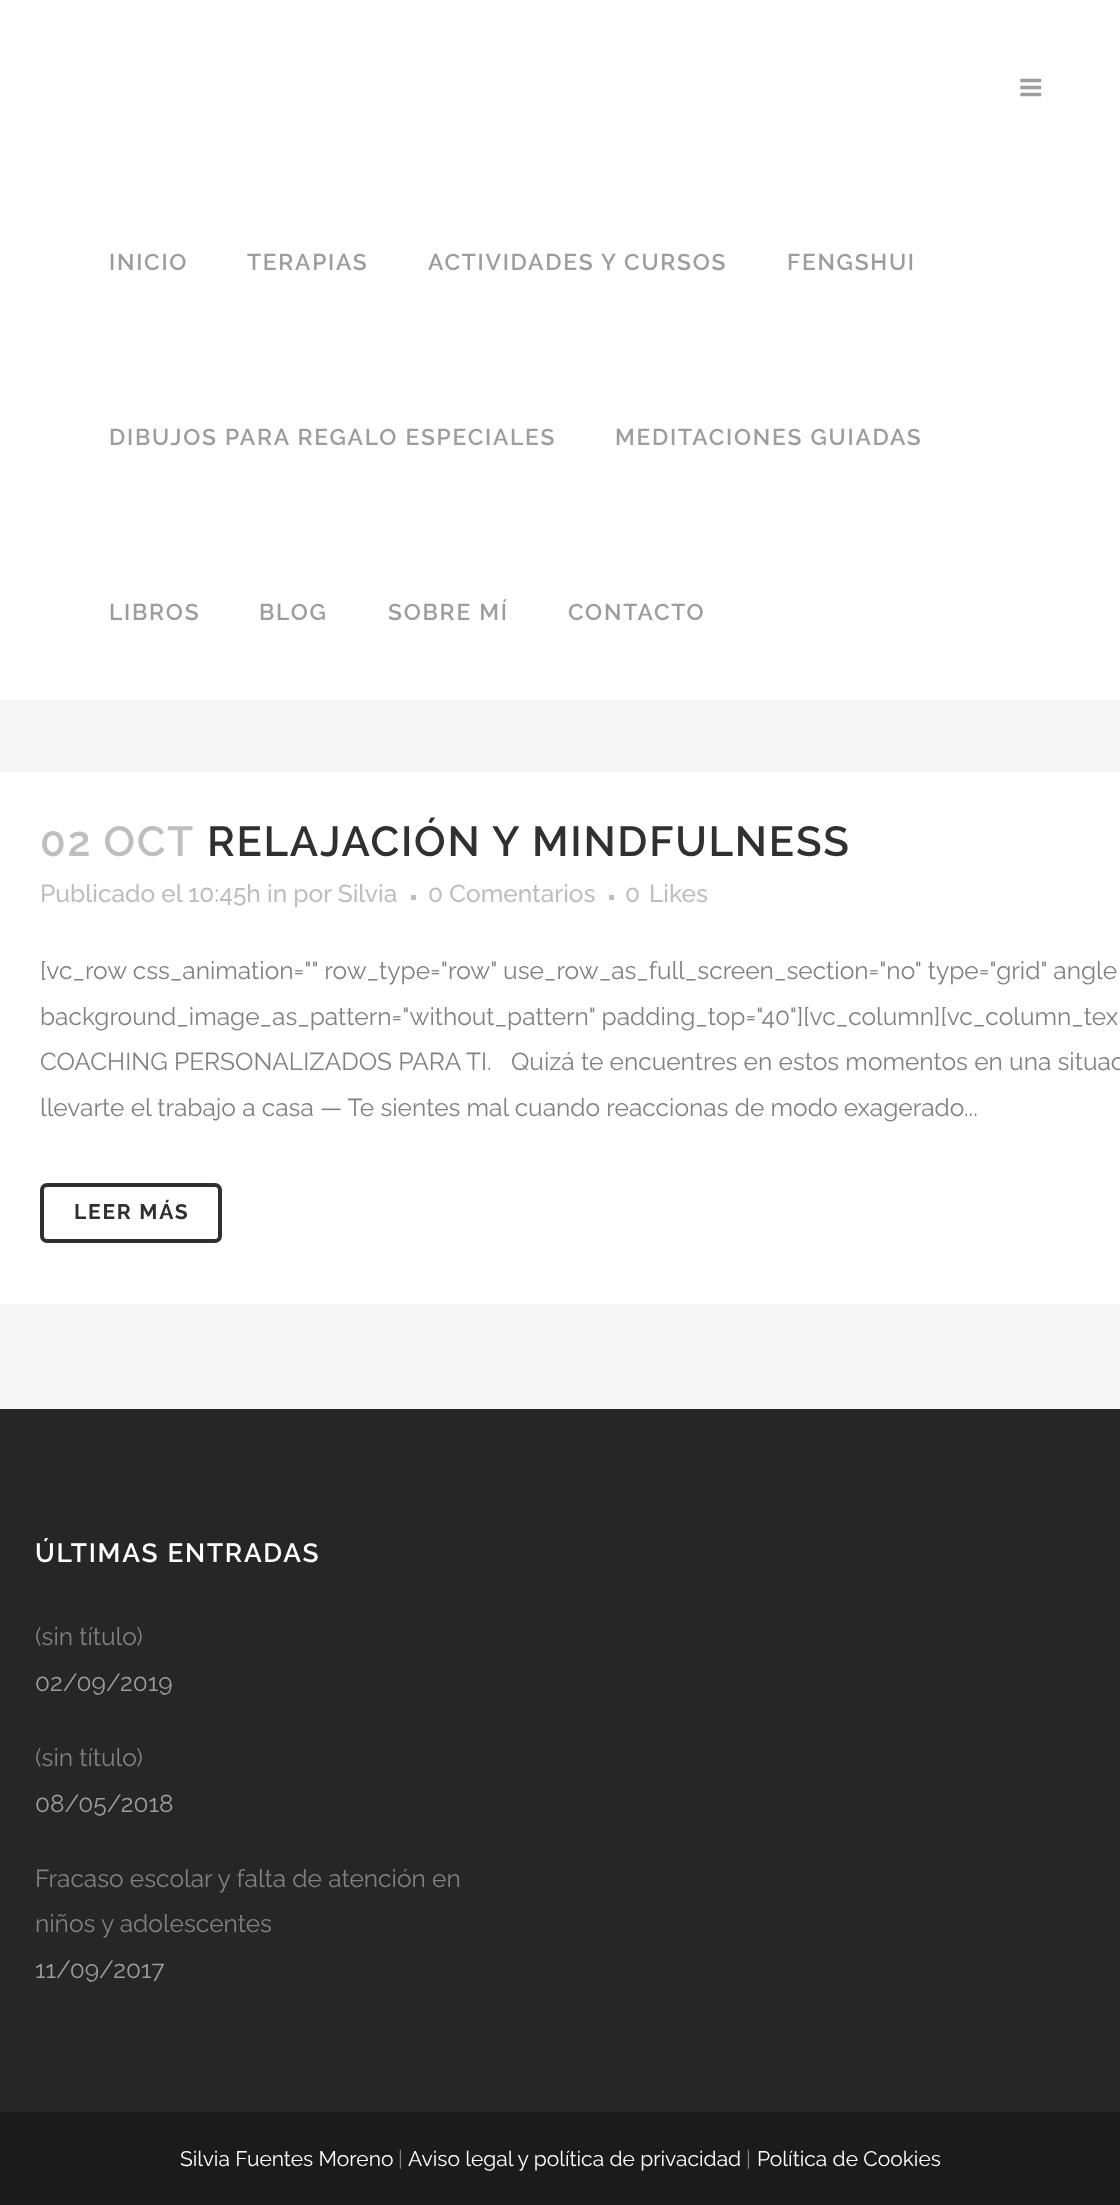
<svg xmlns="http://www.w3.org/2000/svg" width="1120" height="2205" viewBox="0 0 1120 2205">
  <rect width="100%" height="100%" fill="#f6f6f6"/>
  <path d="M0 0h1120v700H0z" fill="#fff"/>
  <image x="1020" y="78" width="22" height="19" href="img/1.png"/>
  <path d="M0 772h1120v532H0z" fill="#fff"/>
  <path d="M411 895h5v5H411z" fill="#bebebe"/>
  <path d="M609 895h5v5H609z" fill="#bebebe"/>
  <rect x="42" y="1185" width="178" height="56" rx="5" fill="none" stroke="#303030" stroke-width="4"/>
  <path d="M0 1409h1120v703H0z" fill="#262626"/>
  <path d="M0 2112h1120v93H0z" fill="#1b1b1b"/>
  <g font-family="Raleway" font-size="22.75" font-weight="600" letter-spacing="1.75" fill="#9d9d9d">
    <text x="109" y="270">INICIO</text>
    <text x="247" y="270">TERAPIAS</text>
    <text x="428" y="270">ACTIVIDADES Y CURSOS</text>
    <text x="787" y="270">FENGSHUI</text>
    <text x="109" y="445">DIBUJOS PARA REGALO ESPECIALES</text>
    <text x="615" y="445">MEDITACIONES GUIADAS</text>
    <text x="109" y="620">LIBROS</text>
    <text x="259" y="620">BLOG</text>
    <text x="388" y="620">SOBRE MÍ</text>
    <text x="568" y="620">CONTACTO</text>
  </g>
  <text x="40" y="856" word-spacing="-1" font-family="Raleway" font-size="42" font-weight="600" letter-spacing="1.75" fill="#bebebe">02 OCT</text>
  <text x="207" y="856" font-family="Raleway" font-size="42" font-weight="600" letter-spacing="1.75" fill="#303030">RELAJACIÓN Y MINDFULNESS</text>
  <g font-family="Raleway" font-size="24.5" font-weight="500" fill="#bebebe">
    <text x="40" y="902">Publicado el 10:45h in por Silvia</text>
    <text x="428" y="902">0 Comentarios</text>
    <text x="625" y="902">0</text>
    <text x="649" y="902">Likes</text>
  </g>
  <g font-family="Raleway" font-size="24.5" fill="#818181">
    <text x="40" y="979">[vc_row css_animation="" row_type="row" use_row_as_full_screen_section="no" type="grid" angle</text>
    <text x="40" y="1025">background_image_as_pattern="without_pattern" padding_top="40"][vc_column][vc_column_tex</text>
    <text x="40" y="1070">COACHING PERSONALIZADOS PARA TI.</text>
    <text x="511" y="1070">Quizá te encuentres en estos momentos en una situac</text>
    <text x="40" y="1116">llevarte el trabajo a casa — Te sientes mal cuando reaccionas de modo exagerado...</text>
  </g>
  <text x="74" y="1219" font-family="Raleway" font-size="21" font-weight="bold" letter-spacing="1.75" fill="#303030">LEER MÁS</text>
  <text x="35" y="1562" font-family="Raleway" font-size="26.25" font-weight="600" letter-spacing="1.75" fill="#fff">ÚLTIMAS ENTRADAS</text>
  <text x="35" y="1645" font-family="Raleway" font-size="24.5" fill="#818181">(sin título)</text>
  <text x="35" y="1691" font-family="Raleway" font-size="24.5" fill="#9d9d9d">02/09/2019</text>
  <text x="35" y="1766" font-family="Raleway" font-size="24.5" fill="#818181">(sin título)</text>
  <text x="35" y="1812" font-family="Raleway" font-size="24.5" fill="#9d9d9d">08/05/2018</text>
  <g font-family="Raleway" font-size="24.5" fill="#818181">
    <text x="35" y="1887">Fracaso escolar y falta de atención en</text>
    <text x="35" y="1932">niños y adolescentes</text>
  </g>
  <text x="35" y="1978" font-family="Raleway" font-size="24.5" fill="#9d9d9d">11/09/2017</text>
  <text x="180" y="2166" font-family="Raleway" font-size="21" fill="#fff">Silvia Fuentes Moreno</text>
  <text x="398" y="2166" font-family="Raleway" font-size="21" fill="#818181">|</text>
  <text x="408" y="2166" font-family="Raleway" font-size="21" fill="#fff">Aviso legal y política de privacidad</text>
  <text x="746" y="2166" font-family="Raleway" font-size="21" fill="#818181">|</text>
  <text x="757" y="2166" font-family="Raleway" font-size="21" fill="#fff">Política de Cookies</text>
</svg>
